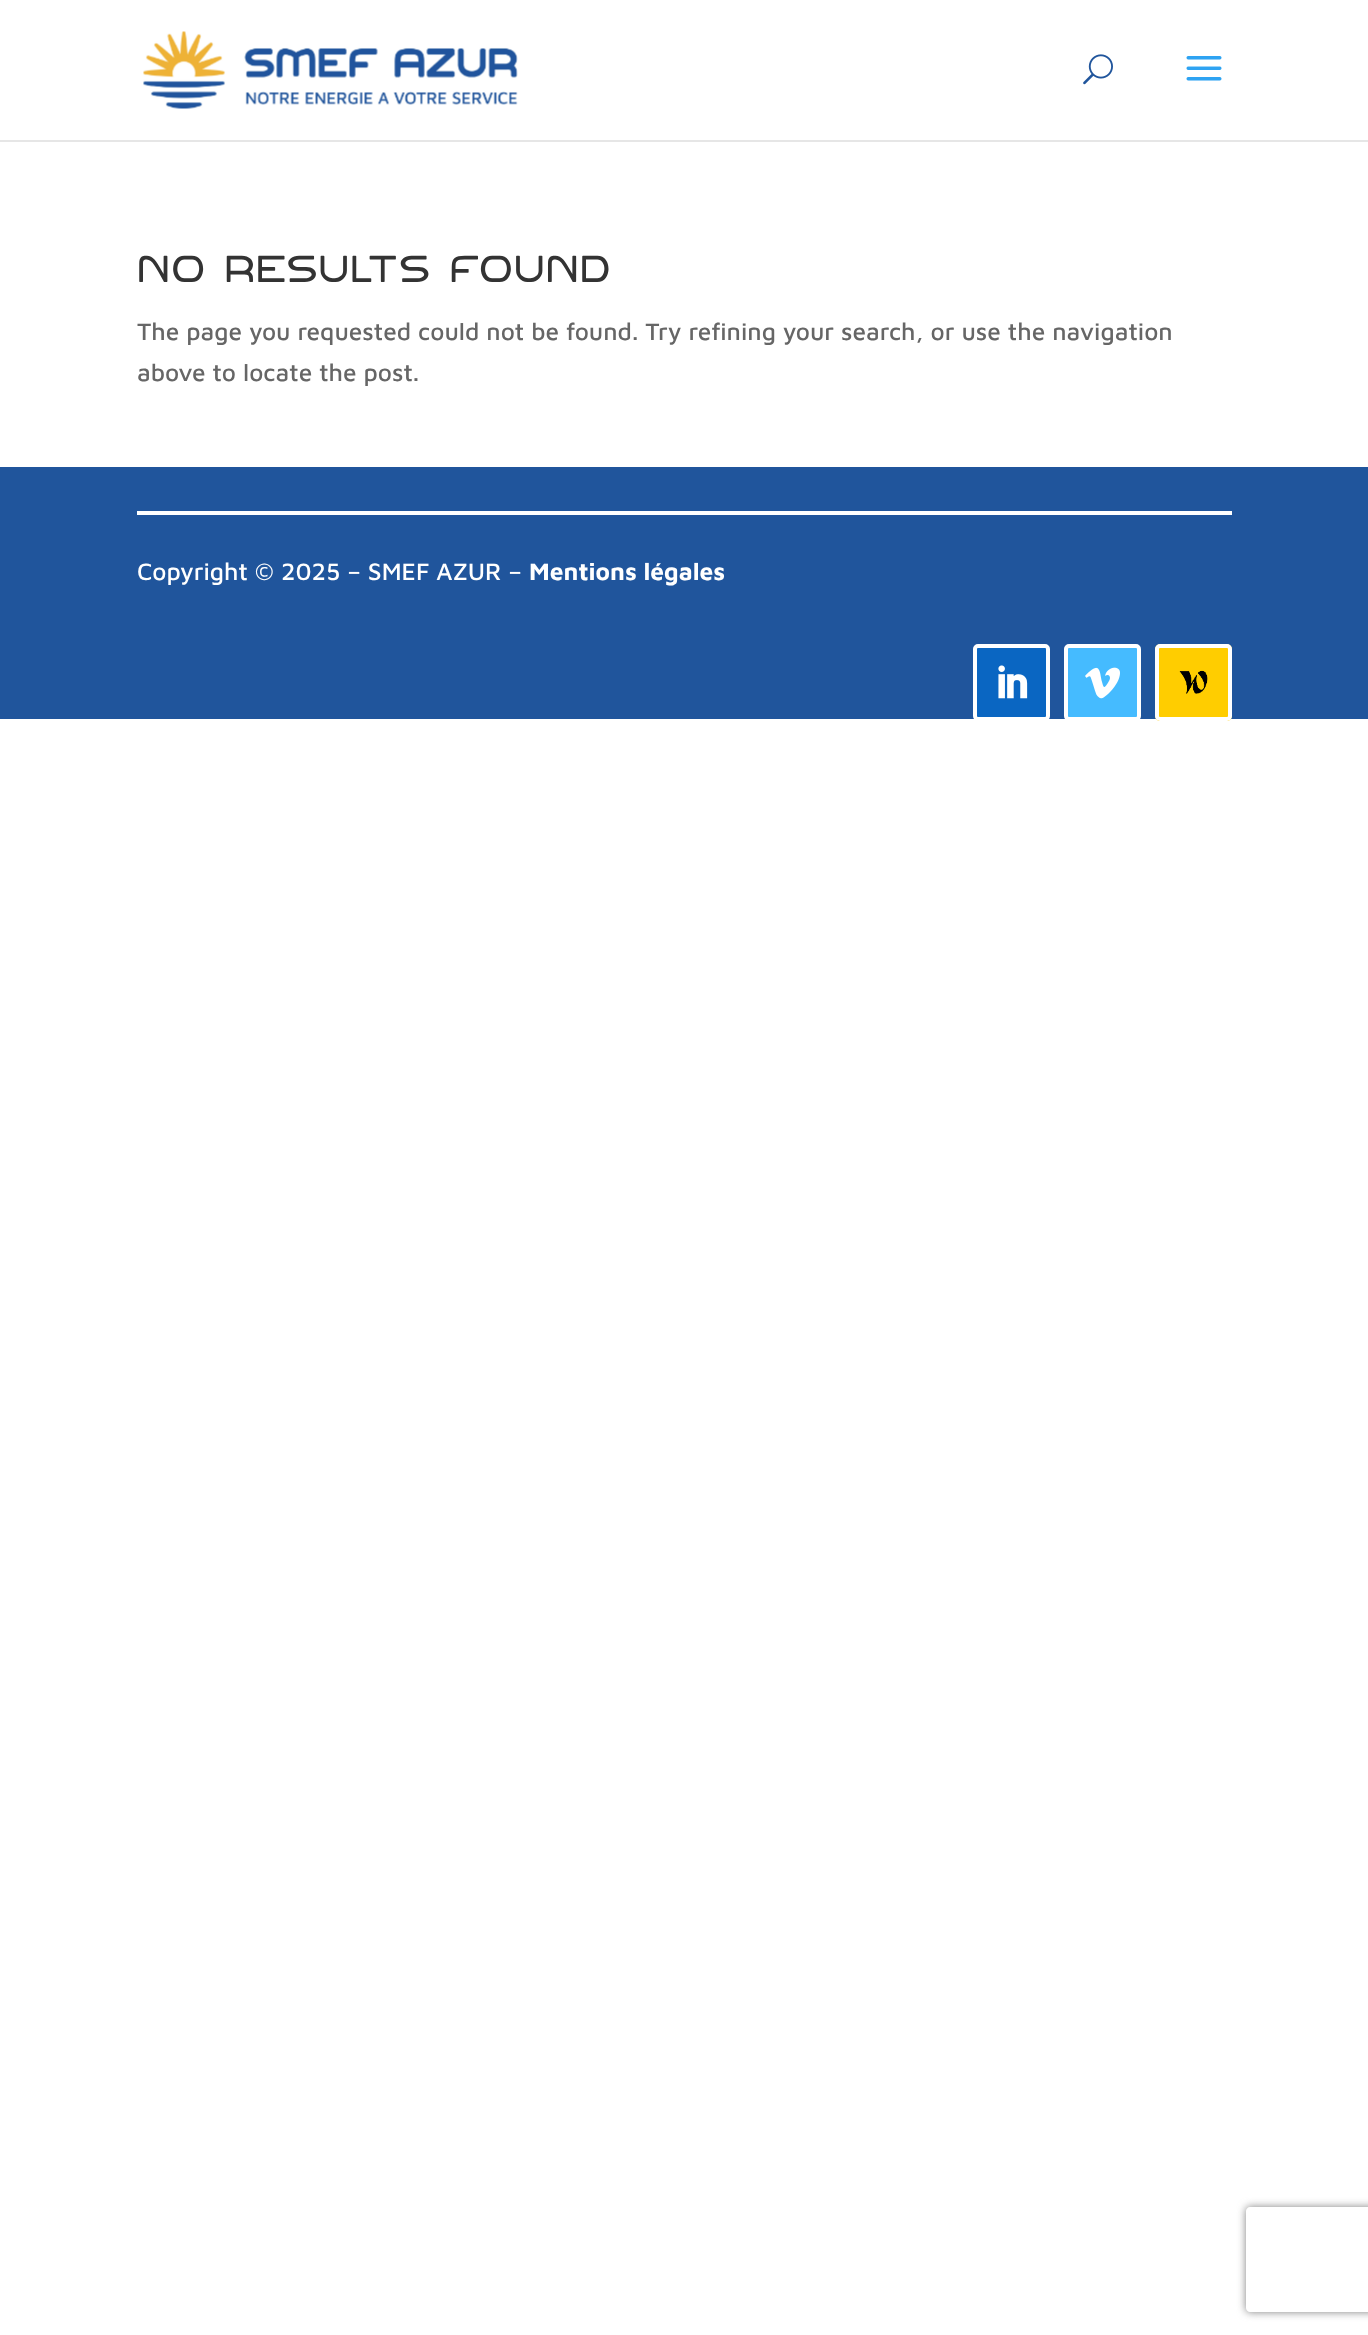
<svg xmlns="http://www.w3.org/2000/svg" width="1368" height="2335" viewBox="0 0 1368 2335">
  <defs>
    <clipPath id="clip1"><path d="M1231 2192H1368V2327H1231ZM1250 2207H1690C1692 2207 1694 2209 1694 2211V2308C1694 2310 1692 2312 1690 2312H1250C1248 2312 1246 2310 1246 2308V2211C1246 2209 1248 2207 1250 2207Z" clip-rule="evenodd"/></clipPath>
  </defs>
  <rect width="100%" height="100%" fill="#fff"/>
  <path d="M0 140V142H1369V2H1368V140Z" fill="#e6e6e6"/>
  <image x="143" y="31" width="375" height="78" href="img/1.png"/>
  <image x="1083" y="54" width="30" height="31" href="img/2.png"/>
  <image x="1186" y="56" width="36" height="25" href="img/3.png"/>
  <path d="M0 467h1368v252H0z" fill="#20559c"/>
  <path d="M137 511h1095v4H137z" fill="#fff"/>
  <rect x="975" y="646" width="73" height="73" rx="3" fill="#0a66c2" stroke="#fff" stroke-width="4"/>
  <image x="998" y="665" width="30" height="34" href="img/4.png"/>
  <rect x="1066" y="646" width="73" height="73" rx="3" fill="#45bbff" stroke="#fff" stroke-width="4"/>
  <image x="1085" y="667" width="35" height="32" href="img/5.png"/>
  <image x="1155" y="644" width="77" height="77" href="img/6.png"/>
  <rect x="1157" y="646" width="73" height="73" rx="3" fill="none" stroke="#fff" stroke-width="4"/>
  <g clip-path="url(#clip1)">
    <rect x="1246" y="2207" width="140" height="105" rx="4" fill="#808080" filter="blur(4.5px)"/>
  </g>
  <text x="137" y="282" font-family="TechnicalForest" font-size="52.5" fill="#333">No Results Found</text>
  <g font-family="Maven Pro" font-size="24.5" font-weight="500" fill="#666">
    <text x="137" y="340">The page you requested could not be found. Try refining your search, or use the navigation</text>
    <text x="137" y="381">above to locate the post.</text>
  </g>
  <text x="137" y="580" font-family="Maven Pro" font-size="24.5" font-weight="500" fill="#fff">Copyright © 2025 – SMEF AZUR –</text>
  <text x="529" y="580" font-family="Maven Pro" font-size="24.5" font-weight="bold" fill="#fff">Mentions légales</text>
</svg>
